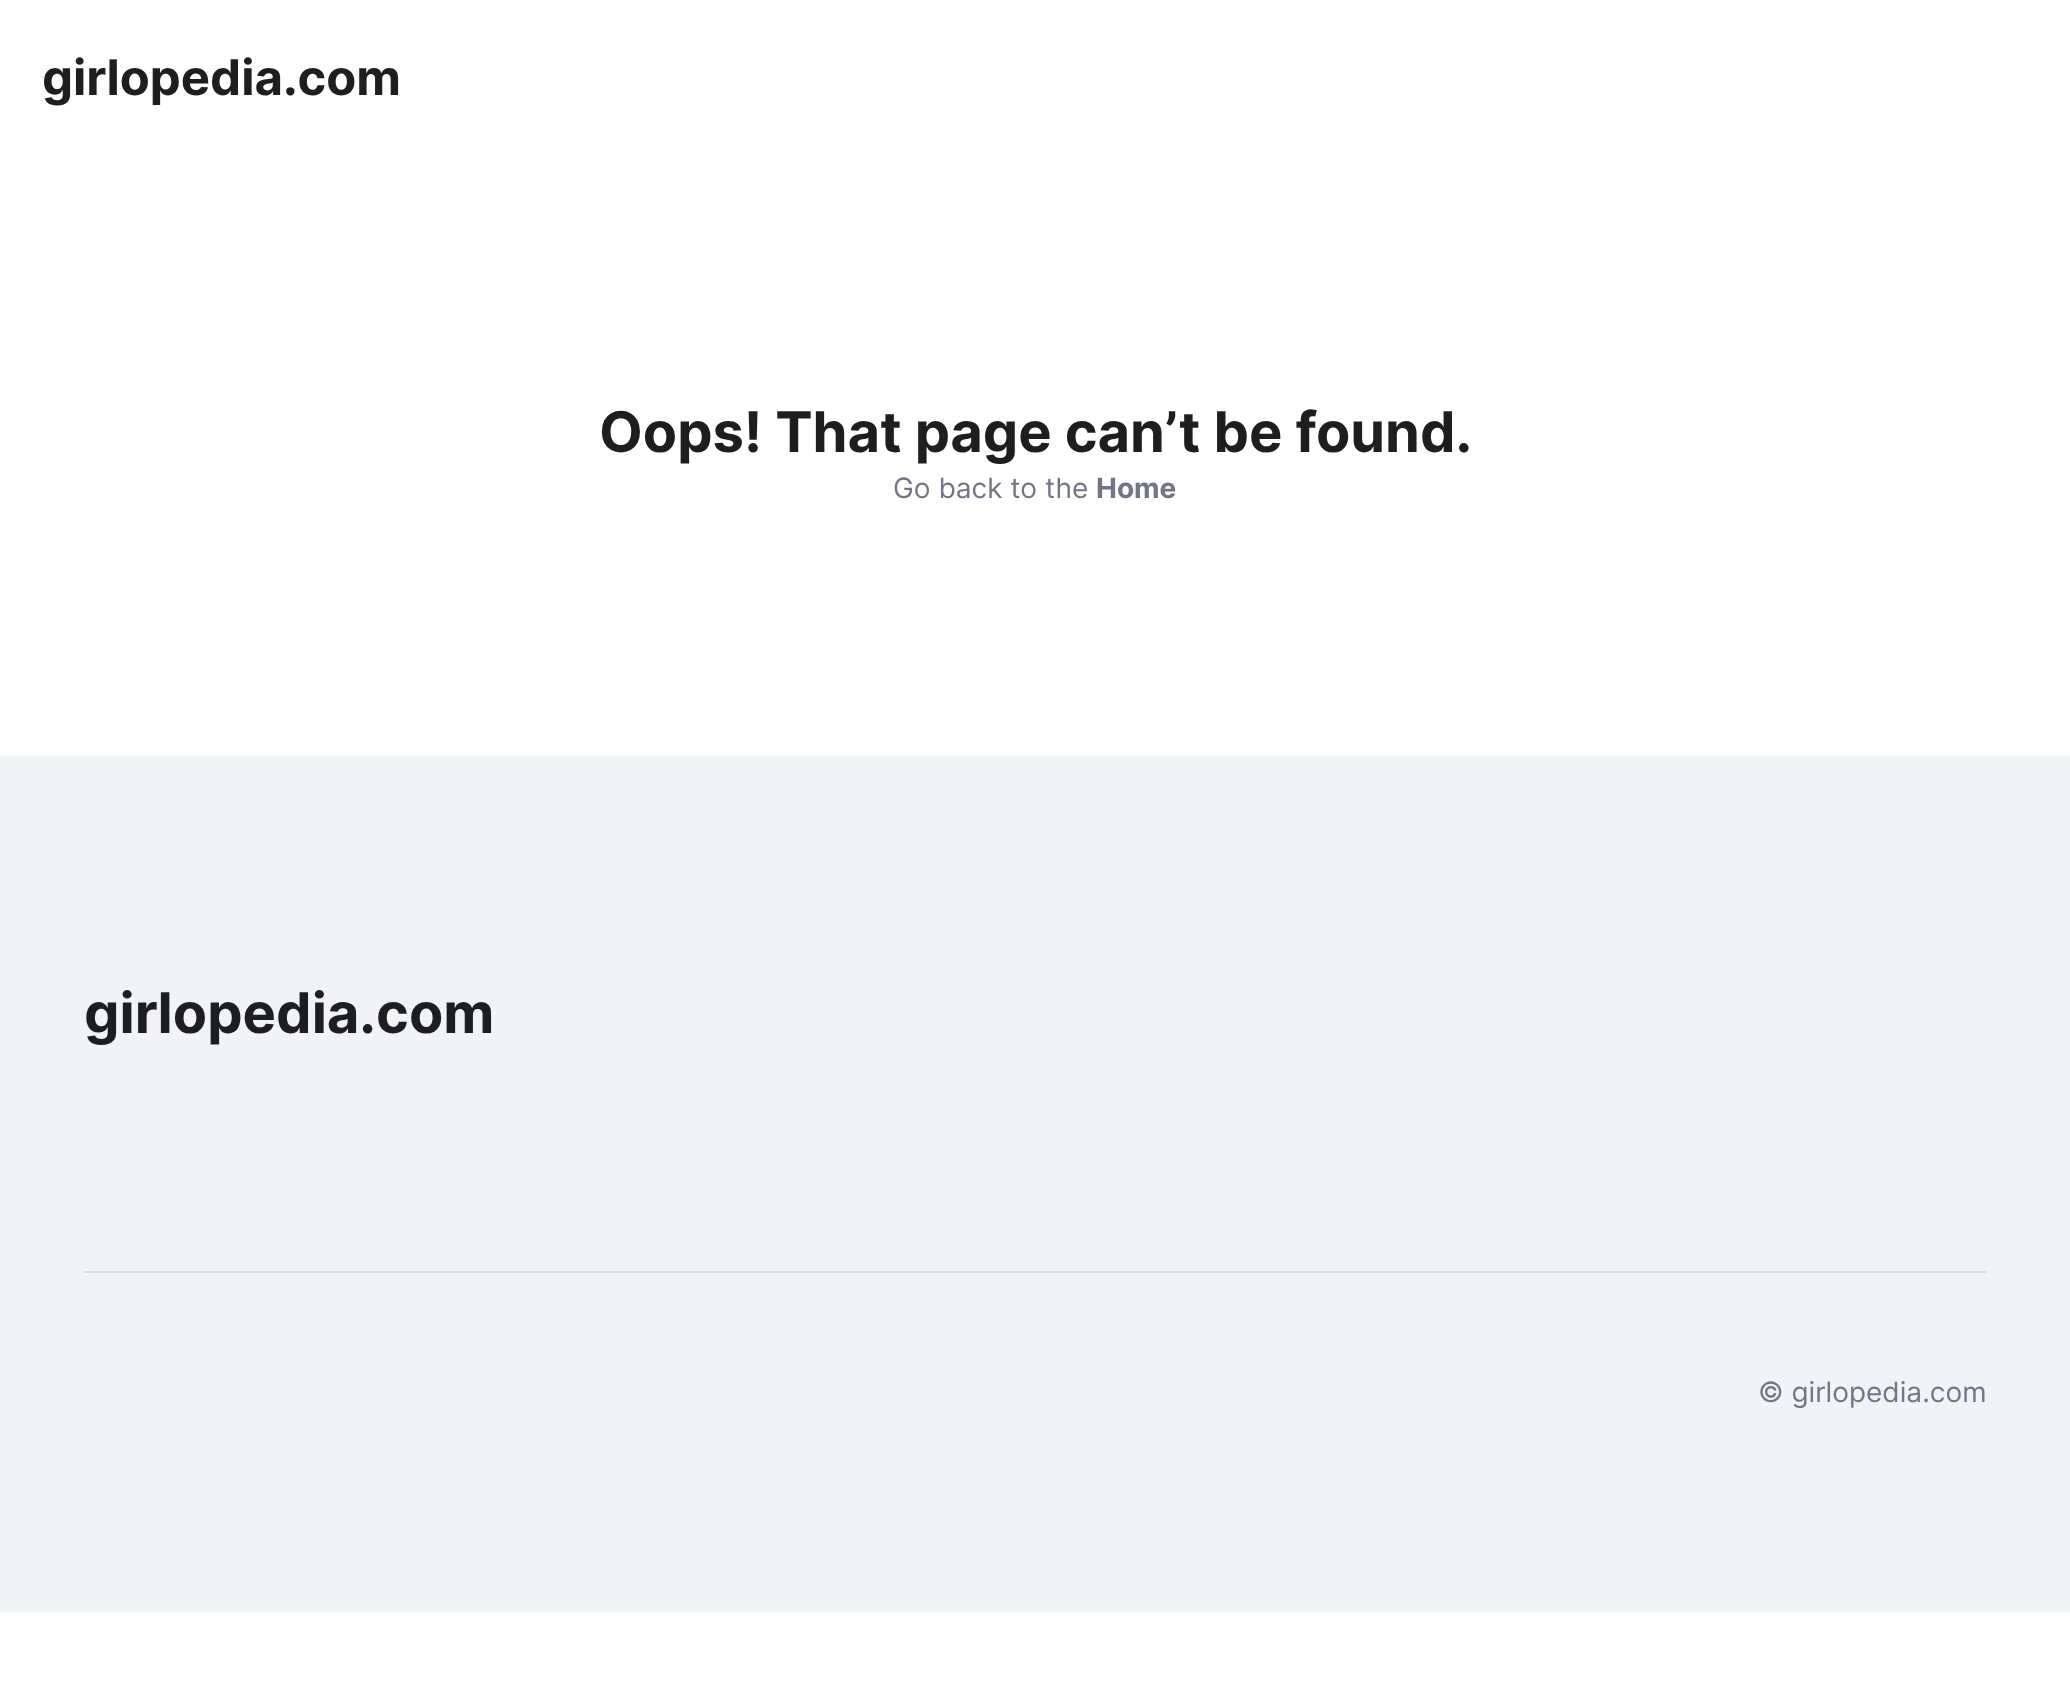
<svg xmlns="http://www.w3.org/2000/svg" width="2070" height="1703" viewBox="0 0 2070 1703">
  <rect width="100%" height="100%" fill="#fff"/>
  <path d="M0 756h2070v856H0z" fill="#f2f3f6"/>
  <path d="M84 1271h1902v2H84z" fill="#dadce0"/>
  <text x="42" y="95" font-family="Inter" font-size="49" font-weight="bold" fill="#1d1e20">girlopedia.com</text>
  <text x="599" y="452" font-family="Inter" font-size="56" font-weight="bold" fill="#1d1e20">Oops! That page can’t be found.</text>
  <text x="893" y="498" font-family="Inter" font-size="28" fill="#727586">Go back to the</text>
  <text x="1096" y="498" font-family="Inter" font-size="28" font-weight="bold" fill="#727586">Home</text>
  <text x="84" y="1033" font-family="Inter" font-size="56" font-weight="bold" fill="#1d1e20">girlopedia.com</text>
  <text x="1758" y="1402" font-family="Inter" font-size="28" fill="#727586">© girlopedia.com</text>
</svg>
